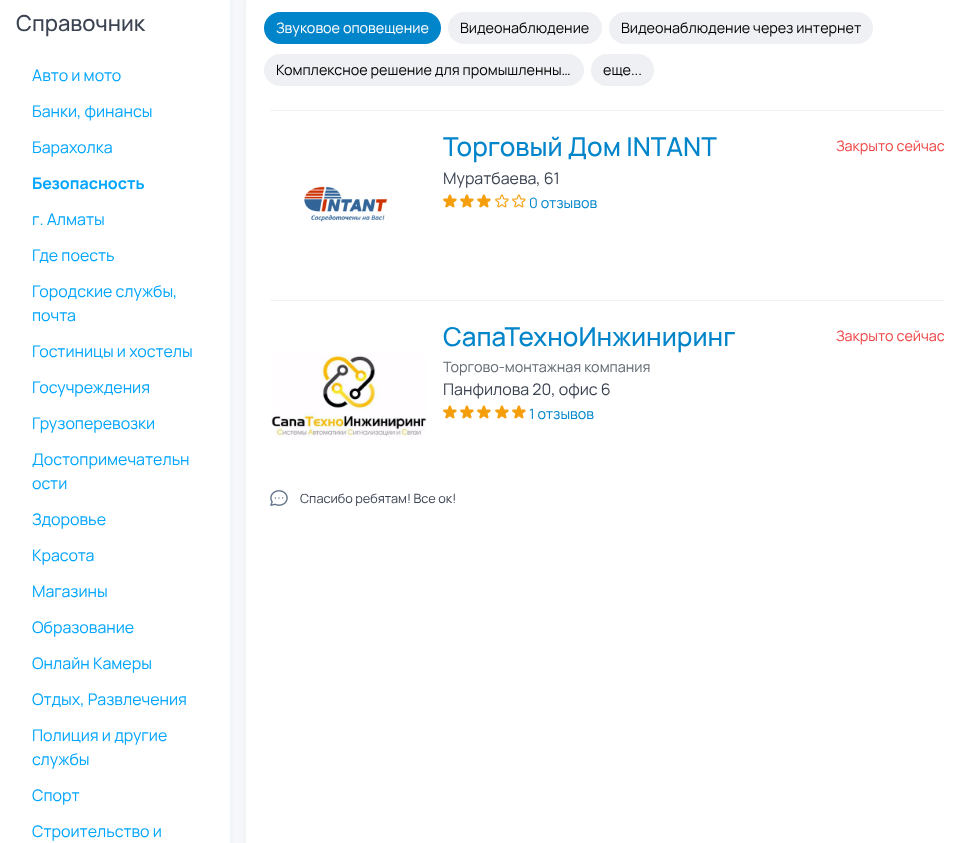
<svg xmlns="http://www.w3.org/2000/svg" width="969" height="843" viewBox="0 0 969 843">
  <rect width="100%" height="100%" fill="#f8fafc"/>
  <rect x="-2" y="-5" width="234" height="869" rx="6" fill="#223c500d" filter="blur(5px)"/>
  <path d="M0 0h230v843H0z" fill="#fff"/>
  <rect x="244" y="-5" width="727" height="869" rx="6" fill="#223c500d" filter="blur(5px)"/>
  <path d="M246 0h723v843H246z" fill="#fff"/>
  <rect x="264" y="12" width="177" height="32" rx="16" fill="#0084ca"/>
  <rect x="448" y="12" width="154" height="32" rx="16" fill="#eef0f3"/>
  <rect x="609" y="12" width="264" height="32" rx="16" fill="#eef0f3"/>
  <rect x="264" y="54" width="320" height="32" rx="16" fill="#eef0f3"/>
  <rect x="591" y="54" width="63" height="32" rx="16" fill="#eef0f3"/>
  <path d="M270 110h675v1H270z" fill="#f1f3f5"/>
  <image x="443" y="194" width="14" height="14" href="img/1.png"/>
  <image x="460" y="194" width="14" height="14" href="img/1.png"/>
  <image x="477" y="194" width="14" height="14" href="img/1.png"/>
  <image x="495" y="194" width="14" height="14" href="img/2.png"/>
  <image x="512" y="194" width="14" height="14" href="img/2.png"/>
  <image x="303" y="186" width="85" height="36" href="img/3.png"/>
  <path d="M270 300h675v1H270z" fill="#f1f3f5"/>
  <image x="443" y="405" width="14" height="14" href="img/1.png"/>
  <image x="460" y="405" width="14" height="14" href="img/1.png"/>
  <image x="477" y="405" width="14" height="14" href="img/1.png"/>
  <image x="495" y="405" width="14" height="14" href="img/1.png"/>
  <image x="512" y="405" width="14" height="14" href="img/1.png"/>
  <image x="271" y="354" width="156" height="84" href="img/4.png"/>
  <image x="270" y="490" width="18" height="16" href="img/5.png"/>
  <text x="16" y="31" font-family="Manrope" font-size="22" font-weight="500" fill="#3b4351">Справочник</text>
  <g font-family="Manrope" font-size="16" fill="#00a5fd">
    <text x="32" y="81">Авто и мото</text>
    <text x="32" y="117">Банки, финансы</text>
    <text x="32" y="153">Барахолка</text>
  </g>
  <text x="32" y="189" font-family="Manrope" font-size="16" font-weight="bold" fill="#00a5fd">Безопасность</text>
  <g font-family="Manrope" font-size="16" fill="#00a5fd">
    <text x="32" y="225">г. Алматы</text>
    <text x="32" y="261">Где поесть</text>
    <text x="32" y="297">Городские службы,</text>
    <text x="32" y="321">почта</text>
    <text x="32" y="357">Гостиницы и хостелы</text>
    <text x="32" y="393">Госучреждения</text>
    <text x="32" y="429">Грузоперевозки</text>
    <text x="32" y="465">Достопримечательн</text>
    <text x="32" y="489">ости</text>
    <text x="32" y="525">Здоровье</text>
    <text x="32" y="561">Красота</text>
    <text x="32" y="597">Магазины</text>
    <text x="32" y="633">Образование</text>
    <text x="32" y="669">Онлайн Камеры</text>
    <text x="32" y="705">Отдых, Развлечения</text>
    <text x="32" y="741">Полиция и другие</text>
    <text x="32" y="765">службы</text>
    <text x="32" y="801">Спорт</text>
    <text x="32" y="837">Строительство и</text>
  </g>
  <text x="276" y="33" font-family="Manrope" font-size="14.4" fill="#fff">Звуковое оповещение</text>
  <g font-family="Manrope" font-size="14.4" fill="#000">
    <text x="460" y="33">Видеонаблюдение</text>
    <text x="621" y="33">Видеонаблюдение через интернет</text>
    <text x="276" y="75">Комплексное решение для промышленны…</text>
    <text x="603" y="75">еще...</text>
  </g>
  <text x="443" y="156" font-family="Manrope" font-size="26" font-weight="500" fill="#0084ca">Торговый Дом INTANT</text>
  <text x="443" y="184" font-family="Manrope" font-size="16" fill="#3b4351">Муратбаева, 61</text>
  <text x="529" y="208" font-family="Manrope" font-size="14.4" fill="#0084ca">0 отзывов</text>
  <text x="836" y="151" font-family="Manrope" font-size="14.4" fill="#ef4444">Закрыто сейчас</text>
  <text x="443" y="346" font-family="Manrope" font-size="26" font-weight="500" fill="#0084ca">СапаТехноИнжиниринг</text>
  <text x="443" y="372" font-family="Manrope" font-size="14.4" fill="#626974">Торгово-монтажная компания</text>
  <text x="443" y="395" font-family="Manrope" font-size="16" fill="#3b4351">Панфилова 20, офис 6</text>
  <text x="529" y="419" font-family="Manrope" font-size="14.4" fill="#0084ca">1 отзывов</text>
  <text x="836" y="341" font-family="Manrope" font-size="14.4" fill="#ef4444">Закрыто сейчас</text>
  <text x="300" y="503" font-family="Manrope" font-size="12.75" fill="#3b4351">Спасибо ребятам! Все ок!</text>
</svg>
